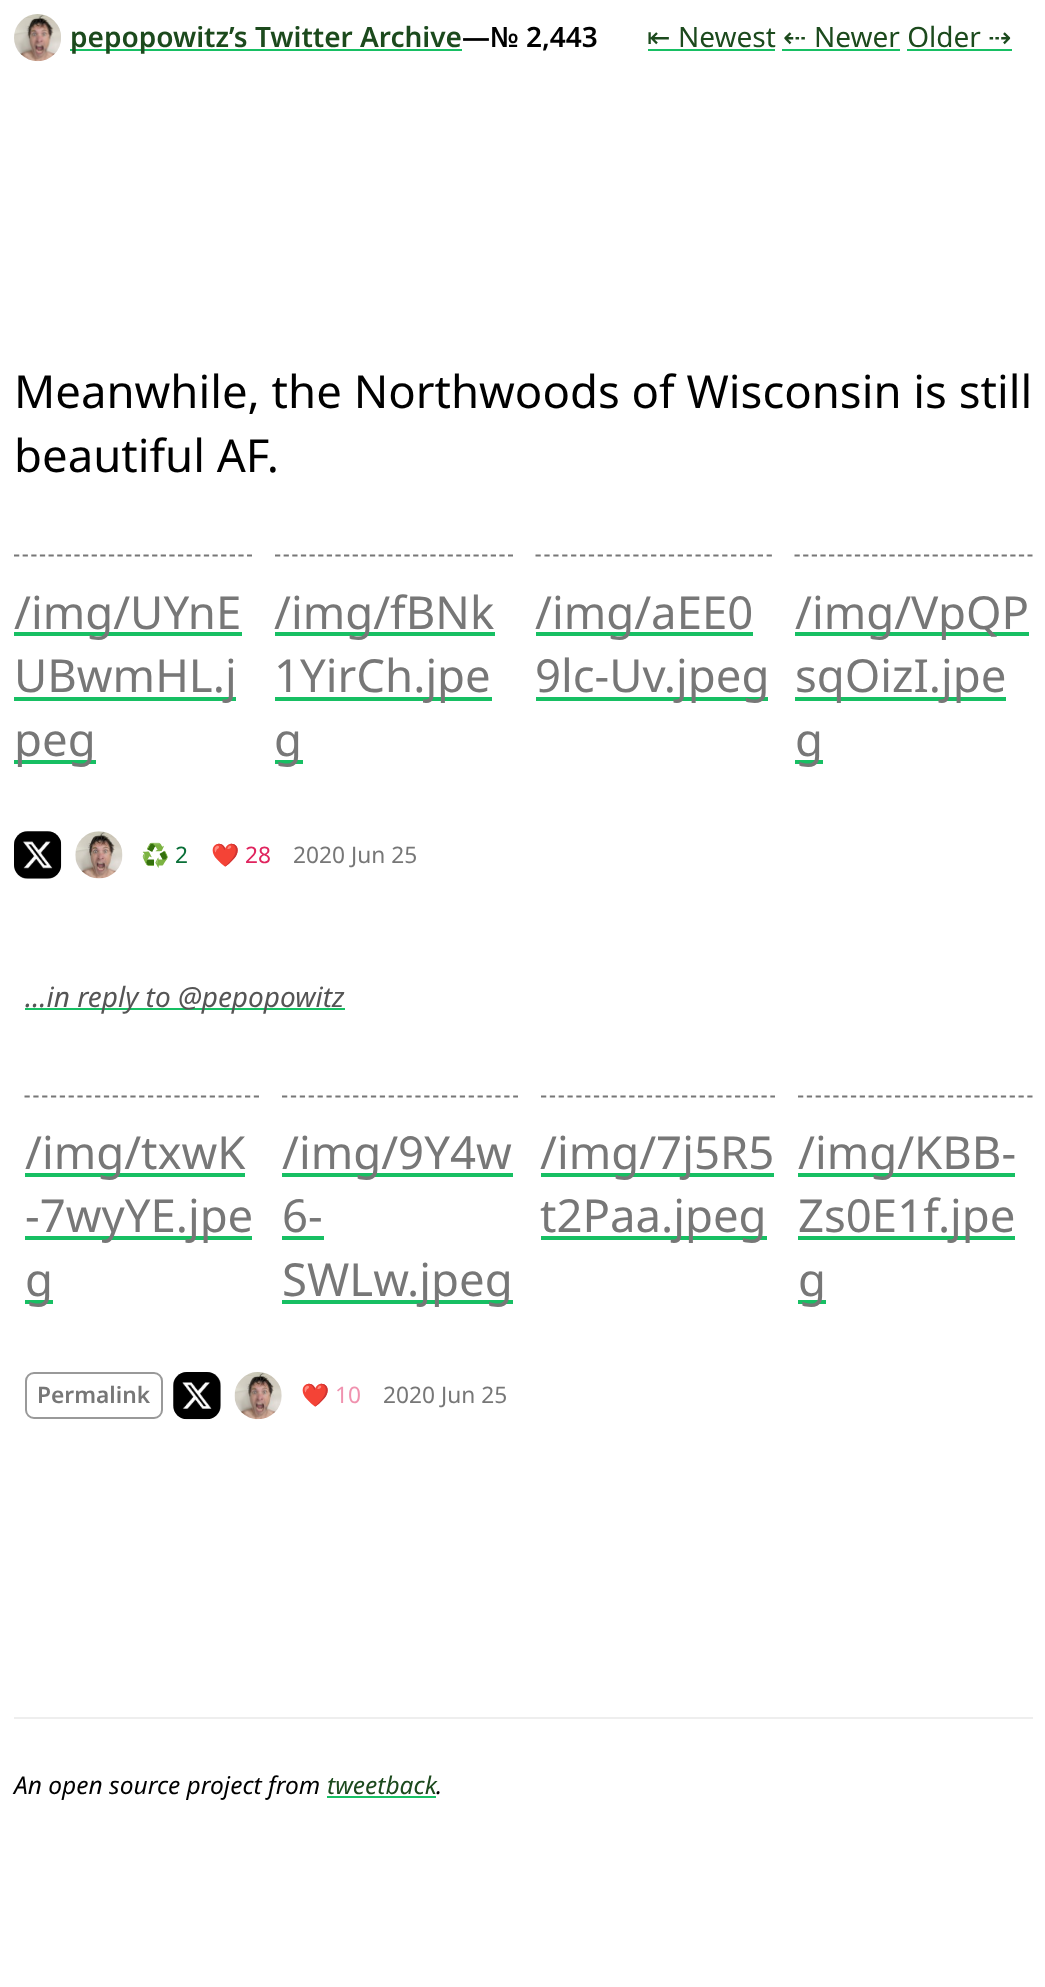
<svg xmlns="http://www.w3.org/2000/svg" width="1045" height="1987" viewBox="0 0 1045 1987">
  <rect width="100%" height="100%" fill="#fff"/>
  <image x="14" y="14" width="47" height="48" href="img/1.png"/>
  <path d="M70 49h392v2H70z" fill="#17bf63"/>
  <path d="M648 49h127v2H648z" fill="#17bf63"/>
  <path d="M782 49h118v2H782z" fill="#17bf63"/>
  <path d="M907 49h105v2H907z" fill="#17bf63"/>
  <path d="M14 555.5H252" fill="none" stroke="#777" stroke-width="1.8" stroke-dasharray="5.25 3.38"/>
  <path d="M14 632h228v4H14z" fill="#17bf63"/>
  <path d="M14 697h222v4H14z" fill="#17bf63"/>
  <path d="M14 760h82v4H14z" fill="#17bf63"/>
  <path d="M275 555.5H513" fill="none" stroke="#777" stroke-width="1.8" stroke-dasharray="5.25 3.38"/>
  <path d="M275 632h220v4H275z" fill="#17bf63"/>
  <path d="M275 697h217v4H275z" fill="#17bf63"/>
  <path d="M275 760h28v4H275z" fill="#17bf63"/>
  <path d="M535.5 555.5H772" fill="none" stroke="#777" stroke-width="1.8" stroke-dasharray="5.25 3.64"/>
  <path d="M536 632h217v4H536z" fill="#17bf63"/>
  <path d="M536 697h232v4H536z" fill="#17bf63"/>
  <path d="M794.5 555.5H1032.5" fill="none" stroke="#777" stroke-width="1.8" stroke-dasharray="5.25 3.38"/>
  <path d="M795 632h234v4H795z" fill="#17bf63"/>
  <path d="M795 697h211v4H795z" fill="#17bf63"/>
  <path d="M795 760h28v4H795z" fill="#17bf63"/>
  <rect x="14" y="831" width="47" height="48" rx="14" fill="#999"/>
  <image x="14" y="831" width="48" height="48" href="img/2.png"/>
  <image x="75" y="831" width="48" height="48" href="img/3.png"/>
  <path d="M25 1008h320v2H25z" fill="#17bf63"/>
  <path d="M24.5 1096.5H259" fill="none" stroke="#777" stroke-width="1.8" stroke-dasharray="5.25 3.57"/>
  <path d="M25 1173h220v4H25z" fill="#17bf63"/>
  <path d="M25 1236h227v4H25z" fill="#17bf63"/>
  <path d="M25 1300h28v4H25z" fill="#17bf63"/>
  <path d="M282 1096.5H518" fill="none" stroke="#777" stroke-width="1.8" stroke-dasharray="5.25 3.64"/>
  <path d="M282 1173h231v4H282z" fill="#17bf63"/>
  <path d="M282 1236h42v4H282z" fill="#17bf63"/>
  <path d="M282 1300h231v4H282z" fill="#17bf63"/>
  <path d="M541 1096.5H775" fill="none" stroke="#777" stroke-width="1.8" stroke-dasharray="5.25 3.57"/>
  <path d="M541 1173h233v4H541z" fill="#17bf63"/>
  <path d="M541 1236h226v4H541z" fill="#17bf63"/>
  <path d="M798 1096.5H1032.5" fill="none" stroke="#777" stroke-width="1.8" stroke-dasharray="5.25 3.57"/>
  <path d="M798 1173h217v4H798z" fill="#17bf63"/>
  <path d="M798 1236h217v4H798z" fill="#17bf63"/>
  <path d="M798 1300h28v4H798z" fill="#17bf63"/>
  <rect x="26" y="1373" width="136" height="45" rx="8" fill="none" stroke="#999" stroke-width="2"/>
  <rect x="173" y="1372" width="48" height="47" rx="14" fill="#999"/>
  <image x="173" y="1372" width="48" height="48" href="img/4.png"/>
  <image x="234" y="1372" width="48" height="48" href="img/5.png"/>
  <path d="M14 1717h1019v2H14z" fill="#eee"/>
  <path d="M327 1796h109v2H327z" fill="#17bf63"/>
  <text x="70" y="47" font-family="Noto Sans" font-size="28" font-weight="600" fill="#1c4a1d">pepopowitz’s Twitter Archive</text>
  <text x="462" y="47" font-family="Noto Sans" font-size="28" font-weight="600" fill="#000">—№ 2,443</text>
  <text x="647" y="47" font-family="DejaVu Sans" font-size="28" fill="#1c4a1d">⇤</text>
  <text x="678" y="47" font-family="Noto Sans" font-size="28" fill="#1c4a1d">Newest</text>
  <text x="783" y="47" font-family="DejaVu Sans" font-size="28" fill="#1c4a1d">⇠</text>
  <text x="814" y="47" font-family="Noto Sans" font-size="28" fill="#1c4a1d">Newer Older</text>
  <text x="988" y="47" font-family="DejaVu Sans" font-size="28" fill="#1c4a1d">⇢</text>
  <g font-family="Noto Sans" font-size="45.5" fill="#000">
    <text x="14" y="408">Meanwhile, the Northwoods of Wisconsin is still</text>
    <text x="14" y="472">beautiful AF.</text>
  </g>
  <g font-family="Noto Sans" font-size="45.5" fill="#777">
    <text x="14" y="629">/img/UYnE</text>
    <text x="14" y="692">UBwmHL.j</text>
    <text x="14" y="756">peg</text>
    <text x="274" y="629">/img/fBNk</text>
    <text x="274" y="692">1YirCh.jpe</text>
    <text x="274" y="756">g</text>
    <text x="535" y="629">/img/aEE0</text>
    <text x="535" y="692">9lc-Uv.jpeg</text>
    <text x="795" y="629">/img/VpQP</text>
    <text x="795" y="692">sqOizI.jpe</text>
    <text x="795" y="756">g</text>
  </g>
  <text x="141" y="863" font-family="Noto Color Emoji" font-size="22.75" fill="#096f37">♻️</text>
  <text x="175" y="863" font-family="Noto Sans" font-size="22.75" fill="#096f37">2</text>
  <text x="211" y="863" font-family="Noto Color Emoji" font-size="22.75" fill="#e0245e">❤️</text>
  <text x="245" y="863" font-family="Noto Sans" font-size="22.75" fill="#e0245e">28</text>
  <text x="293" y="863" font-family="Noto Sans" font-size="22.75" fill="#777">2020 Jun 25</text>
  <text x="25" y="1007" font-family="Noto Sans" font-size="28" font-style="italic" fill="#555">…in reply to @pepopowitz</text>
  <g font-family="Noto Sans" font-size="45.5" fill="#777">
    <text x="25" y="1169">/img/txwK</text>
    <text x="25" y="1232">-7wyYE.jpe</text>
    <text x="25" y="1296">g</text>
    <text x="282" y="1169">/img/9Y4w</text>
    <text x="282" y="1232">6-</text>
    <text x="282" y="1296">SWLw.jpeg</text>
    <text x="540" y="1169">/img/7j5R5</text>
    <text x="540" y="1232">t2Paa.jpeg</text>
    <text x="798" y="1169">/img/KBB-</text>
    <text x="798" y="1232">Zs0E1f.jpe</text>
    <text x="798" y="1296">g</text>
  </g>
  <text x="37" y="1403" font-family="Noto Sans" font-size="22.75" font-weight="600" fill="#777">Permalink</text>
  <text x="301" y="1403" font-family="Noto Color Emoji" font-size="22.75" fill="#f092af">❤️</text>
  <text x="335" y="1403" font-family="Noto Sans" font-size="22.75" fill="#f092af">10</text>
  <text x="383" y="1403" font-family="Noto Sans" font-size="22.75" fill="#777">2020 Jun 25</text>
  <text x="14" y="1794" font-family="Noto Sans" font-size="24.5" font-style="italic" fill="#000">An open source project from</text>
  <text x="327" y="1794" font-family="Noto Sans" font-size="24.5" font-style="italic" fill="#1c4a1d">tweetback</text>
  <text x="436" y="1794" font-family="Noto Sans" font-size="24.5" font-style="italic" fill="#000">.</text>
</svg>
